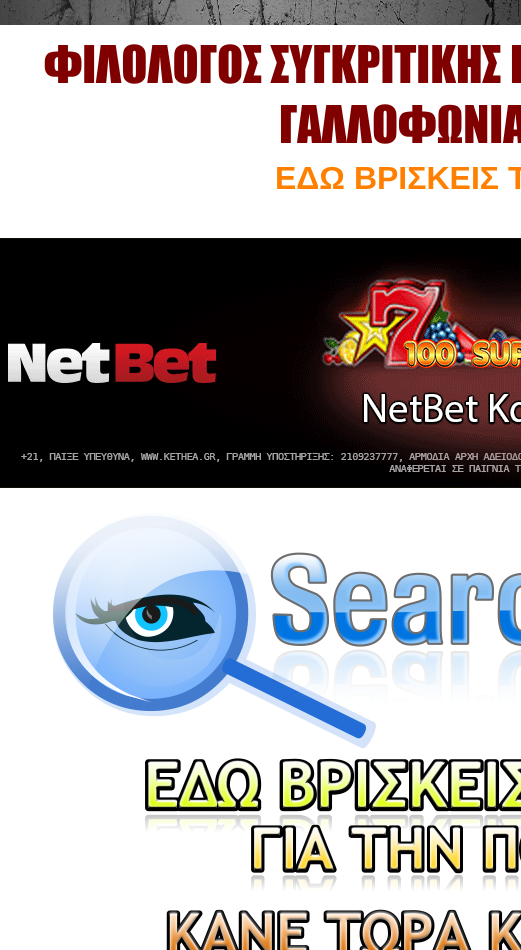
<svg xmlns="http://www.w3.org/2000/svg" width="521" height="950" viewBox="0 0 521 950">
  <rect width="100%" height="100%" fill="#fff"/>
  <image x="0" y="0" width="521" height="25" href="img/1.png"/>
  <image x="0" y="238" width="521" height="250" href="img/2.png"/>
  <image x="52" y="513" width="469" height="437" href="img/3.png"/>
  <g font-family="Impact" font-size="48" fill="#800000">
    <text x="44" y="83">ΦΙΛΟΛΟΓΟΣ ΣΥΓΚΡΙΤΙΚΗΣ Γ</text>
    <text x="279" y="143">ΓΑΛΛΟΦΩΝΙΑ</text>
  </g>
  <text x="275" y="189" font-family="Liberation Sans" font-size="32" font-weight="bold" fill="#ff8000">ΕΔΩ ΒΡΙΣΚΕΙΣ Τ</text>
</svg>
